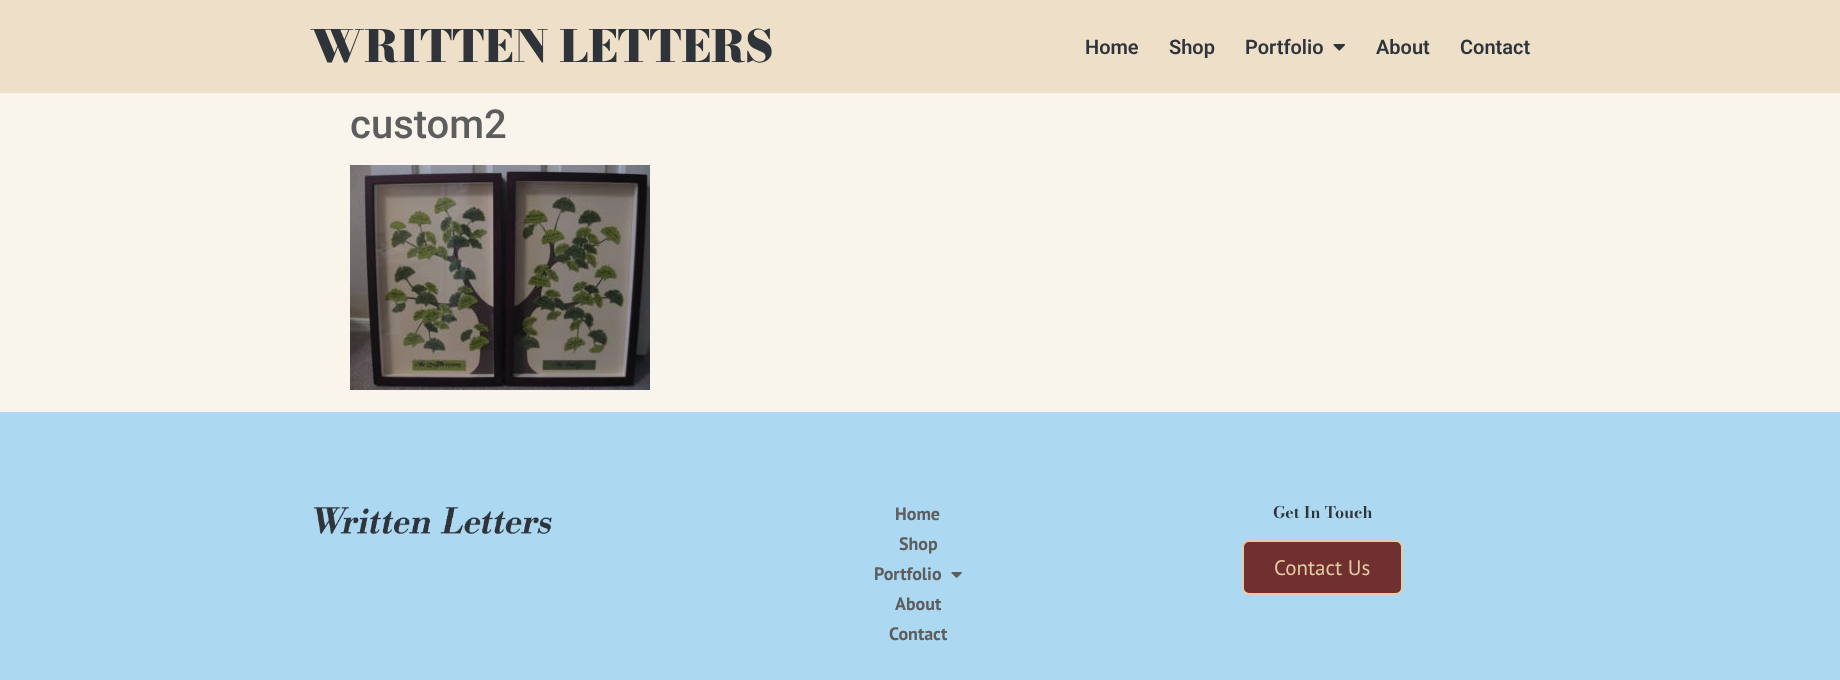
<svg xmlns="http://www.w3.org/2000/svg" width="1840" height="680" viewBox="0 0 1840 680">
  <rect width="100%" height="100%" fill="#faf5ec"/>
  <path d="M0 0h1840v93H0z" fill="#eee0c8"/>
  <image x="1333" y="44" width="12" height="7" href="img/1.png"/>
  <image x="350" y="165" width="300" height="225" href="img/2.png"/>
  <path d="M0 412h1840v268H0z" fill="#acd9f1"/>
  <image x="314" y="507" width="238" height="27" href="img/3.png"/>
  <image x="951" y="572" width="11" height="6" href="img/4.png"/>
  <rect x="1243" y="541" width="159" height="53" rx="6" fill="#703030" stroke="#e3cda4" stroke-width="2"/>
  <text x="310" y="62" font-family="Bodoni Moda" font-size="44" font-weight="900" fill="#2f343b">WRITTEN LETTERS</text>
  <g font-family="Roboto" font-size="20" font-weight="600" fill="#2f343b">
    <text x="1085" y="54">Home</text>
    <text x="1169" y="54">Shop</text>
    <text x="1245" y="54">Portfolio</text>
    <text x="1376" y="54">About</text>
    <text x="1460" y="54">Contact</text>
  </g>
  <text x="350" y="138" font-family="Roboto" font-size="40" font-weight="500" fill="#5d5d5d">custom2</text>
  <g font-family="PT Sans" font-size="18" font-weight="bold" fill="#5d5d5d">
    <text x="895" y="520">Home</text>
    <text x="899" y="550">Shop</text>
    <text x="874" y="580">Portfolio</text>
    <text x="895" y="610">About</text>
    <text x="889" y="640">Contact</text>
  </g>
  <text x="1273" y="518" font-family="Bodoni Moda" font-size="16" font-weight="bold" fill="#2f343b">Get In Touch</text>
  <text x="1274" y="575" font-family="PT Sans" font-size="21" fill="#e3cda4">Contact Us</text>
</svg>
